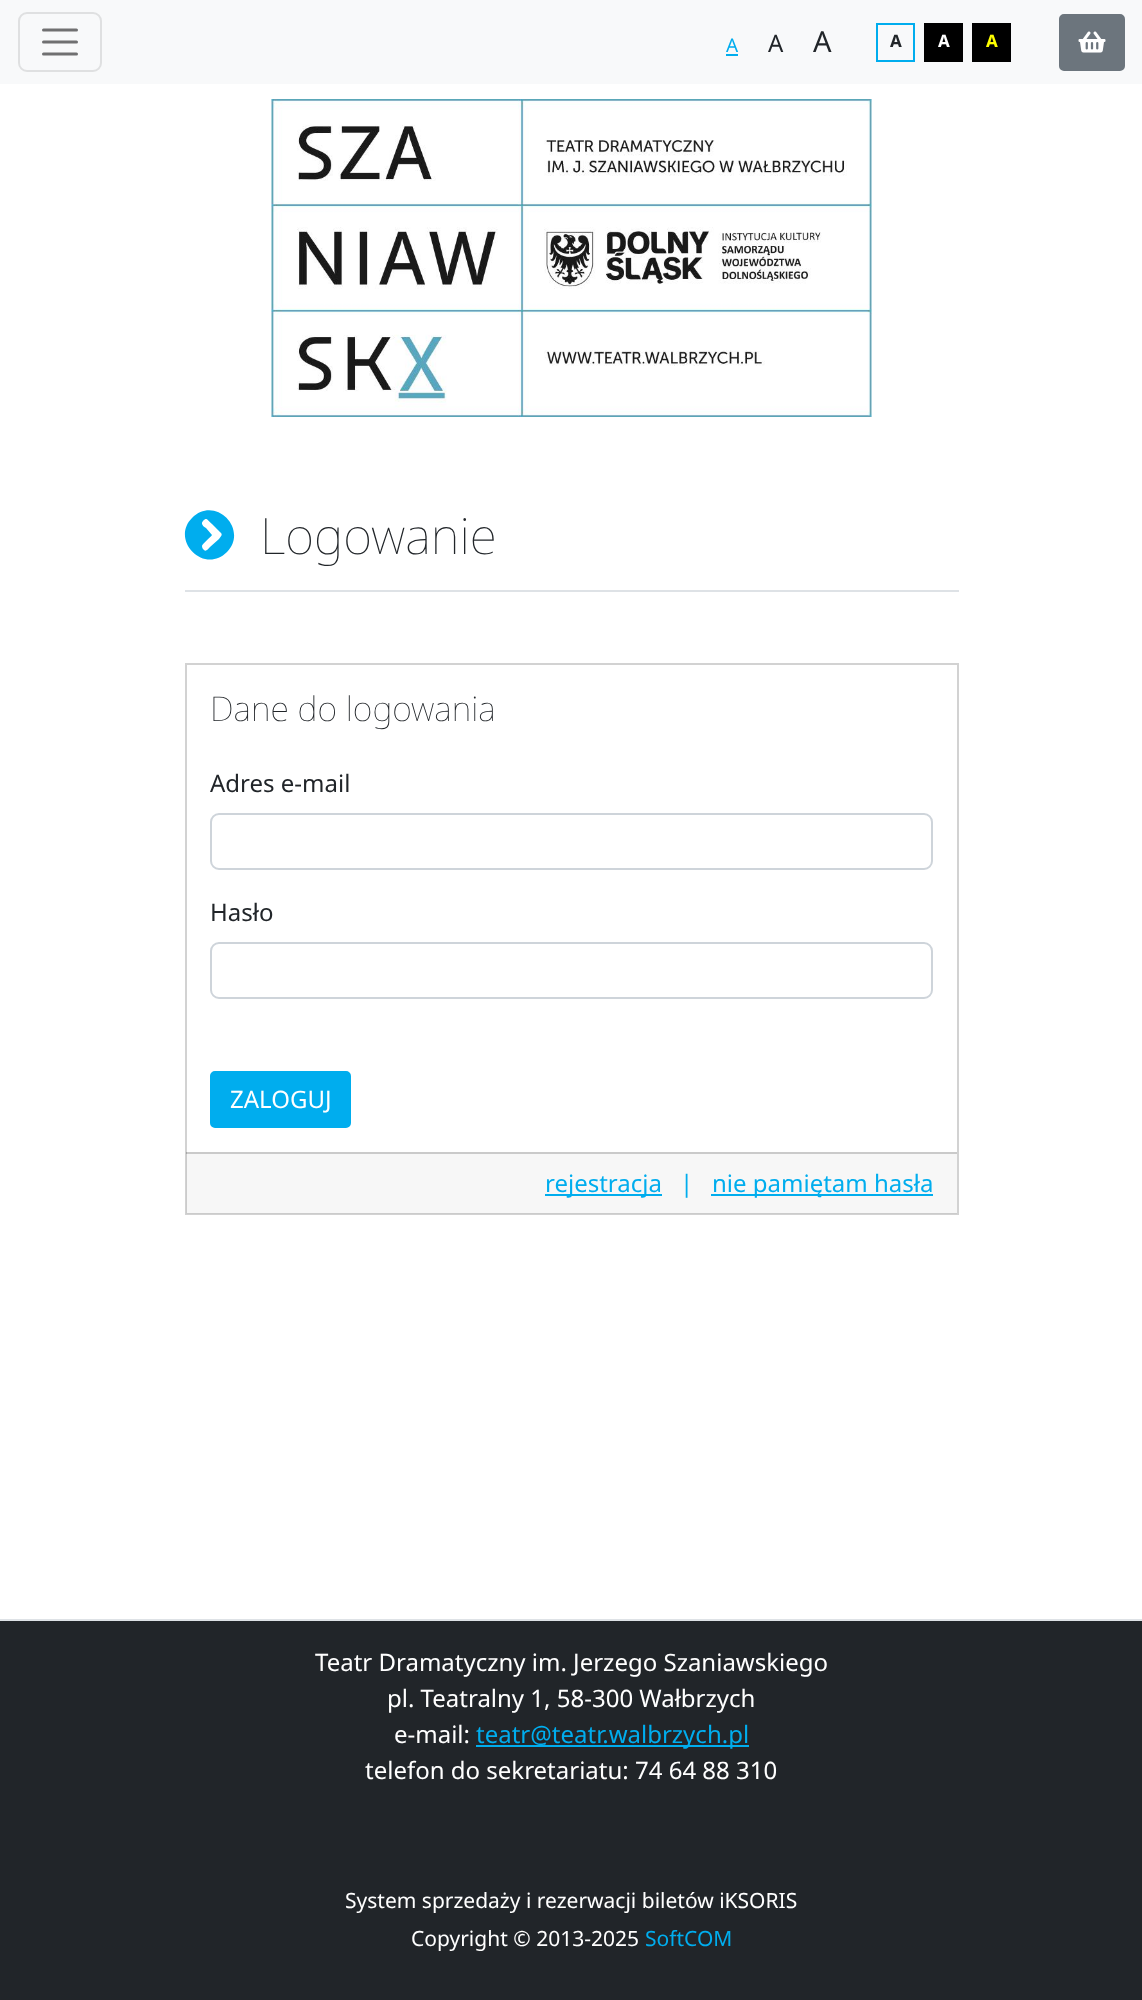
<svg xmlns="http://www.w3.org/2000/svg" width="1142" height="2000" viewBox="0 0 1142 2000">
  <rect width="100%" height="100%" fill="#fff"/>
  <path d="M0 0h1142v84H0z" fill="#f8f9fa"/>
  <rect x="19" y="13" width="82" height="58" rx="8" fill="none" stroke="#dfe0e1" stroke-width="2"/>
  <path d="M43.5 30H76.5M43.5 42H76.5M43.5 54H76.5" fill="none" stroke="#707071" stroke-width="3" stroke-linecap="round"/>
  <path d="M726 54h12v2H726z" fill="#00adee"/>
  <path d="M877 24h37v37H877z" fill="none" stroke="#00adee" stroke-width="2"/>
  <path d="M924 23h39v39H924z" fill="#000"/>
  <path d="M972 23h39v39H972z" fill="#000"/>
  <rect x="1060" y="15" width="64" height="55" rx="4" fill="#6c757d" stroke="#6c757d" stroke-width="2"/>
  <image x="1078" y="31" width="28" height="22" href="img/1.png"/>
  <image x="271" y="99" width="601" height="318" href="img/2.png"/>
  <path d="M185 590h774v2H185z" fill="#dee2e6"/>
  <path d="M192 518C215 495 249 529 227 552C204 575 170 540 192 518ZM221 533L212 524C207 520 207 517 203 521C200 524 204 527 206 528L212 535C211 537 202 544 202 546C202 548 203 549 204 550C206 552 208 549 210 547L219 539C220 537 223 535 221 533Z" fill="#00adee"/>
  <path d="M186 664h772v550H186z" fill="none" stroke="#d2d2d2" stroke-width="2"/>
  <rect x="211" y="814" width="721" height="55" rx="8" fill="none" stroke="#ced4da" stroke-width="2"/>
  <rect x="211" y="943" width="721" height="55" rx="8" fill="none" stroke="#ced4da" stroke-width="2"/>
  <rect x="211" y="1072" width="139" height="55" rx="4" fill="#00adee" stroke="#00adee" stroke-width="2"/>
  <path d="M186 1152h771v62H186z" fill="#00000008"/>
  <path d="M186 1152h771v2H186z" fill="#0000002e"/>
  <path d="M545 1194h117v2H545z" fill="#00adee"/>
  <path d="M711 1194h222v2H711z" fill="#00adee"/>
  <path d="M0 1621h1142v379H0z" fill="#212529"/>
  <path d="M0 1619h1142v2H0z" fill="#dee2e6"/>
  <path d="M476 1745h273v2H476z" fill="#00adee"/>
  <text x="726" y="52" font-family="Noto Sans" font-size="19" fill="#00adee">A</text>
  <text x="768" y="52" font-family="Noto Sans" font-size="24" fill="#212529">A</text>
  <text x="813" y="52" font-family="Noto Sans" font-size="29" fill="#212529">A</text>
  <text x="890" y="47" font-family="Noto Sans" font-size="17" font-weight="bold" fill="#212529">A</text>
  <text x="938" y="47" font-family="Noto Sans" font-size="17" font-weight="bold" fill="#fff">A</text>
  <text x="986" y="47" font-family="Noto Sans" font-size="17" font-weight="bold" fill="#ff0">A</text>
  <text x="260" y="554" font-family="Noto Sans" font-size="50" font-weight="100" fill="#212529">Logowanie</text>
  <text x="210" y="721" font-family="Noto Sans" font-size="34" font-weight="100" fill="#212529">Dane do logowania</text>
  <g font-family="Noto Sans" font-size="24" fill="#212529">
    <text x="210" y="792">Adres e-mail</text>
    <text x="210" y="921">Hasło</text>
  </g>
  <text x="230" y="1108" font-family="Noto Sans" font-size="24" fill="#fff">ZALOGUJ</text>
  <g font-family="Noto Sans" font-size="24" fill="#00adee">
    <text x="545" y="1192">rejestracja</text>
    <text x="680" y="1192">|</text>
    <text x="712" y="1192">nie pamiętam hasła</text>
  </g>
  <g font-family="Noto Sans" font-size="24" fill="#fff">
    <text x="315" y="1671">Teatr Dramatyczny im. Jerzego Szaniawskiego</text>
    <text x="387" y="1707">pl. Teatralny 1, 58-300 Wałbrzych</text>
    <text x="394" y="1743">e-mail:</text>
  </g>
  <text x="476" y="1743" font-family="Noto Sans" font-size="24" fill="#00adee">teatr@teatr.walbrzych.pl</text>
  <text x="365" y="1779" font-family="Noto Sans" font-size="24" fill="#fff">telefon do sekretariatu: 74 64 88 310</text>
  <g font-family="Noto Sans" font-size="21" fill="#fff">
    <text x="345" y="1908">System sprzedaży i rezerwacji biletów iKSORIS</text>
    <text x="411" y="1946">Copyright © 2013-2025</text>
  </g>
  <text x="645" y="1946" font-family="Noto Sans" font-size="21" fill="#00adee">SoftCOM</text>
</svg>
